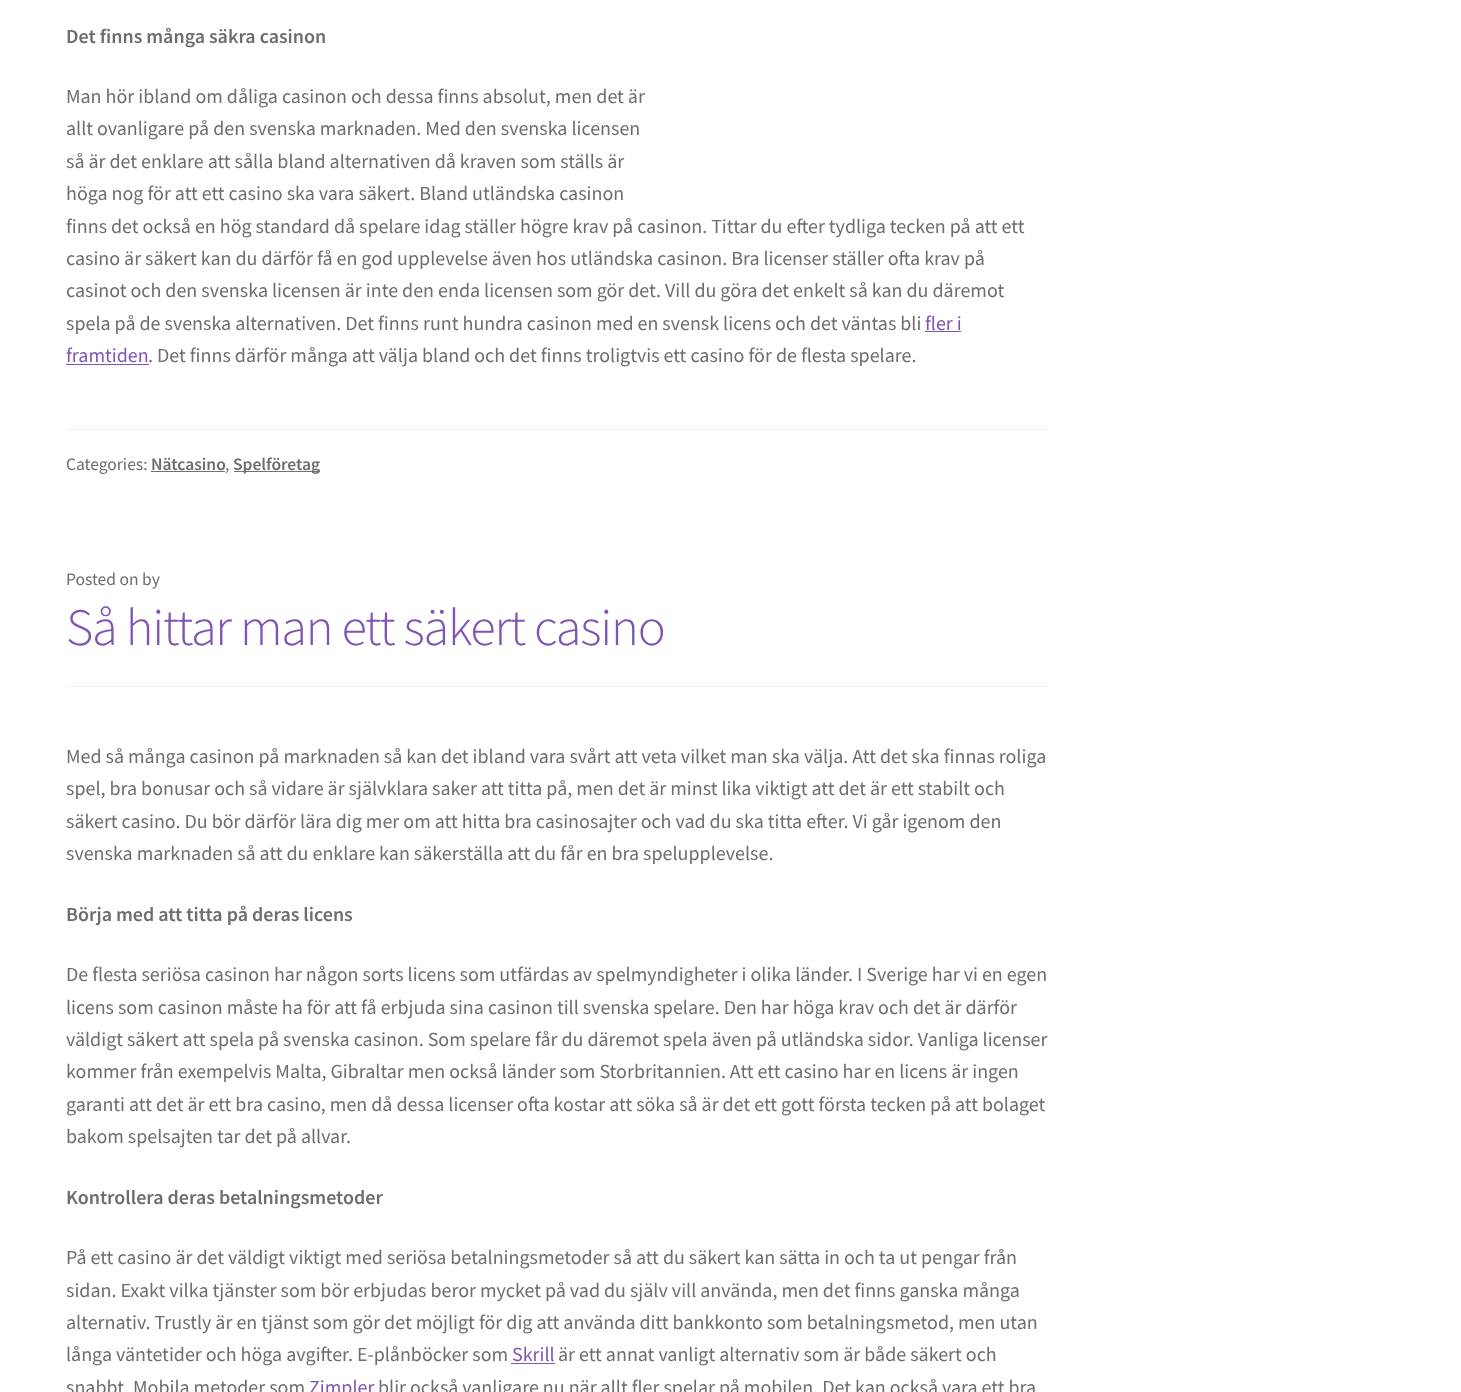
<svg xmlns="http://www.w3.org/2000/svg" width="1461" height="1392" viewBox="0 0 1461 1392">
  <rect width="100%" height="100%" fill="#fff"/>
  <path d="M925 331h36v1H925z" fill="#7f54b3"/>
  <path d="M66 364h83v1H66z" fill="#7f54b3"/>
  <path d="M66 429h983v1H66z" fill="#f2f2f2"/>
  <path d="M151 471h74v1H151z" fill="#727272"/>
  <path d="M234 471h86v1H234z" fill="#727272"/>
  <path d="M66 686h983v1H66z" fill="#f2f2f2"/>
  <path d="M511 1363h44v1H511z" fill="#7f54b3"/>
  <text x="66" y="43" font-family="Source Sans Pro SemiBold" font-size="20" font-weight="600" fill="#6d6d6d">Det finns många säkra casinon</text>
  <g font-family="Source Sans Pro" font-size="20" fill="#6d6d6d">
    <text x="66" y="103">Man hör ibland om dåliga casinon och dessa finns absolut, men det är</text>
    <text x="66" y="135">allt ovanligare på den svenska marknaden. Med den svenska licensen</text>
    <text x="66" y="168">så är det enklare att sålla bland alternativen då kraven som ställs är</text>
    <text x="66" y="200">höga nog för att ett casino ska vara säkert. Bland utländska casinon</text>
    <text x="66" y="233">finns det också en hög standard då spelare idag ställer högre krav på casinon. Tittar du efter tydliga tecken på att ett</text>
    <text x="66" y="265">casino är säkert kan du därför få en god upplevelse även hos utländska casinon. Bra licenser ställer ofta krav på</text>
    <text x="66" y="297">casinot och den svenska licensen är inte den enda licensen som gör det. Vill du göra det enkelt så kan du däremot</text>
    <text x="66" y="330">spela på de svenska alternativen. Det finns runt hundra casinon med en svensk licens och det väntas bli</text>
  </g>
  <g font-family="Source Sans Pro" font-size="20" fill="#7f54b3">
    <text x="925" y="330">fler i</text>
    <text x="66" y="362">framtiden</text>
  </g>
  <text x="148" y="362" font-family="Source Sans Pro" font-size="20" fill="#6d6d6d">. Det finns därför många att välja bland och det finns troligtvis ett casino för de flesta spelare.</text>
  <text x="66" y="470" font-family="Source Sans Pro" font-size="17.5" fill="#6d6d6d">Categories:</text>
  <text x="151" y="470" font-family="Source Sans Pro SemiBold" font-size="17.5" font-weight="600" fill="#6d6d6d">Nätcasino</text>
  <text x="225" y="470" font-family="Source Sans Pro" font-size="17.5" fill="#6d6d6d">,</text>
  <text x="233" y="470" font-family="Source Sans Pro SemiBold" font-size="17.5" font-weight="600" fill="#6d6d6d">Spelföretag</text>
  <text x="66" y="585" font-family="Source Sans Pro" font-size="17.5" fill="#6d6d6d">Posted on by</text>
  <text x="66" y="645" font-family="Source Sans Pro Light" font-size="52.4" font-weight="300" letter-spacing="-1.25" fill="#7f54b3">Så hittar man ett säkert casino</text>
  <g font-family="Source Sans Pro" font-size="20" fill="#6d6d6d">
    <text x="66" y="763">Med så många casinon på marknaden så kan det ibland vara svårt att veta vilket man ska välja. Att det ska finnas roliga</text>
    <text x="66" y="795">spel, bra bonusar och så vidare är självklara saker att titta på, men det är minst lika viktigt att det är ett stabilt och</text>
    <text x="66" y="828">säkert casino. Du bör därför lära dig mer om att hitta bra casinosajter och vad du ska titta efter. Vi går igenom den</text>
    <text x="66" y="860">svenska marknaden så att du enklare kan säkerställa att du får en bra spelupplevelse.</text>
  </g>
  <text x="66" y="921" font-family="Source Sans Pro SemiBold" font-size="20" font-weight="600" fill="#6d6d6d">Börja med att titta på deras licens</text>
  <g font-family="Source Sans Pro" font-size="20" fill="#6d6d6d">
    <text x="66" y="981">De flesta seriösa casinon har någon sorts licens som utfärdas av spelmyndigheter i olika länder. I Sverige har vi en egen</text>
    <text x="66" y="1014">licens som casinon måste ha för att få erbjuda sina casinon till svenska spelare. Den har höga krav och det är därför</text>
    <text x="66" y="1046">väldigt säkert att spela på svenska casinon. Som spelare får du däremot spela även på utländska sidor. Vanliga licenser</text>
    <text x="66" y="1078">kommer från exempelvis Malta, Gibraltar men också länder som Storbritannien. Att ett casino har en licens är ingen</text>
    <text x="66" y="1111">garanti att det är ett bra casino, men då dessa licenser ofta kostar att söka så är det ett gott första tecken på att bolaget</text>
    <text x="66" y="1143">bakom spelsajten tar det på allvar.</text>
  </g>
  <text x="66" y="1204" font-family="Source Sans Pro SemiBold" font-size="20" font-weight="600" fill="#6d6d6d">Kontrollera deras betalningsmetoder</text>
  <g font-family="Source Sans Pro" font-size="20" fill="#6d6d6d">
    <text x="66" y="1264">På ett casino är det väldigt viktigt med seriösa betalningsmetoder så att du säkert kan sätta in och ta ut pengar från</text>
    <text x="66" y="1297">sidan. Exakt vilka tjänster som bör erbjudas beror mycket på vad du själv vill använda, men det finns ganska många</text>
    <text x="66" y="1329">alternativ. Trustly är en tjänst som gör det möjligt för dig att använda ditt bankkonto som betalningsmetod, men utan</text>
    <text x="66" y="1361">långa väntetider och höga avgifter. E-plånböcker som</text>
  </g>
  <text x="512" y="1361" font-family="Source Sans Pro" font-size="20" fill="#7f54b3">Skrill</text>
  <g font-family="Source Sans Pro" font-size="20" fill="#6d6d6d">
    <text x="558" y="1361">är ett annat vanligt alternativ som är både säkert och</text>
    <text x="66" y="1394">snabbt. Mobila metoder som</text>
  </g>
  <text x="309" y="1394" font-family="Source Sans Pro" font-size="20" fill="#7f54b3">Zimpler</text>
  <text x="378" y="1394" font-family="Source Sans Pro" font-size="20" fill="#6d6d6d">blir också vanligare nu när allt fler spelar på mobilen. Det kan också vara ett bra</text>
</svg>
